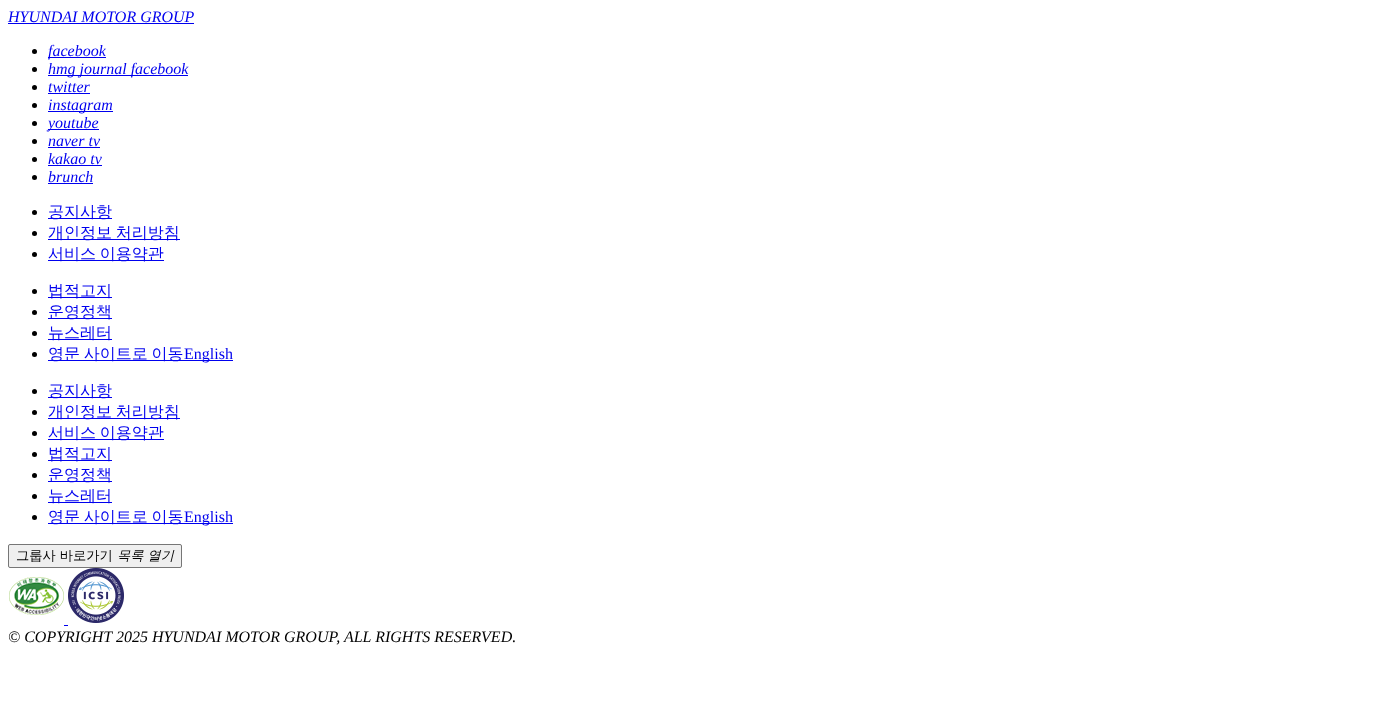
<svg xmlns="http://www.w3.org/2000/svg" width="1377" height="713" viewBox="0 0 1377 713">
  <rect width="100%" height="100%" fill="#fff"/>
  <path d="M8 23h186v1H8z" fill="#00e"/>
  <circle cx="34.5" cy="51.5" r="2.5" fill="#000"/>
  <path d="M48 57h58v1H48z" fill="#00e"/>
  <circle cx="34.5" cy="69.5" r="2.5" fill="#000"/>
  <path d="M48 75h140v1H48z" fill="#00e"/>
  <circle cx="34.5" cy="87.5" r="2.5" fill="#000"/>
  <path d="M48 93h42v1H48z" fill="#00e"/>
  <circle cx="34.5" cy="105.5" r="2.5" fill="#000"/>
  <path d="M48 111h65v1H48z" fill="#00e"/>
  <circle cx="34.5" cy="123.5" r="2.5" fill="#000"/>
  <path d="M48 129h51v1H48z" fill="#00e"/>
  <circle cx="34.5" cy="141.5" r="2.5" fill="#000"/>
  <path d="M48 147h52v1H48z" fill="#00e"/>
  <circle cx="34.5" cy="159.5" r="2.5" fill="#000"/>
  <path d="M48 165h54v1H48z" fill="#00e"/>
  <circle cx="34.5" cy="177.5" r="2.5" fill="#000"/>
  <path d="M48 183h45v1H48z" fill="#00e"/>
  <circle cx="34.5" cy="212.5" r="2.5" fill="#000"/>
  <path d="M48 218h64v1H48z" fill="#00e"/>
  <circle cx="34.5" cy="233.5" r="2.5" fill="#000"/>
  <path d="M48 239h132v1H48z" fill="#00e"/>
  <circle cx="34.5" cy="254.5" r="2.5" fill="#000"/>
  <path d="M48 260h116v1H48z" fill="#00e"/>
  <circle cx="34.5" cy="291.5" r="2.5" fill="#000"/>
  <path d="M48 297h64v1H48z" fill="#00e"/>
  <circle cx="34.5" cy="312.5" r="2.5" fill="#000"/>
  <path d="M48 318h64v1H48z" fill="#00e"/>
  <circle cx="34.5" cy="333.5" r="2.5" fill="#000"/>
  <path d="M48 339h64v1H48z" fill="#00e"/>
  <circle cx="34.5" cy="354.5" r="2.5" fill="#000"/>
  <path d="M48 360h185v1H48z" fill="#00e"/>
  <circle cx="34.5" cy="391.5" r="2.5" fill="#000"/>
  <path d="M48 397h64v1H48z" fill="#00e"/>
  <circle cx="34.5" cy="412.5" r="2.5" fill="#000"/>
  <path d="M48 418h132v1H48z" fill="#00e"/>
  <circle cx="34.5" cy="433.5" r="2.5" fill="#000"/>
  <path d="M48 439h116v1H48z" fill="#00e"/>
  <circle cx="34.5" cy="454.5" r="2.5" fill="#000"/>
  <path d="M48 460h64v1H48z" fill="#00e"/>
  <circle cx="34.5" cy="475.5" r="2.5" fill="#000"/>
  <path d="M48 481h64v1H48z" fill="#00e"/>
  <circle cx="34.5" cy="496.5" r="2.5" fill="#000"/>
  <path d="M48 502h64v1H48z" fill="#00e"/>
  <circle cx="34.5" cy="517.5" r="2.5" fill="#000"/>
  <path d="M48 523h185v1H48z" fill="#00e"/>
  <rect x="8.5" y="544.5" width="173" height="23" rx="1.5" fill="#efefef" stroke="#767676"/>
  <image x="9" y="577" width="55" height="38" href="img/1.png"/>
  <image x="68" y="568" width="56" height="55" href="img/2.png"/>
  <path d="M64 625h4v1H64z" fill="#00e"/>
  <g font-family="Liberation Serif" font-size="16" font-style="italic" fill="#00e">
    <text x="8" y="22">HYUNDAI MOTOR GROUP</text>
    <text x="48" y="56">facebook</text>
    <text x="48" y="74">hmg journal facebook</text>
    <text x="48" y="92">twitter</text>
    <text x="48" y="110">instagram</text>
    <text x="48" y="128">youtube</text>
    <text x="48" y="146">naver tv</text>
    <text x="48" y="164">kakao tv</text>
    <text x="48" y="182">brunch</text>
  </g>
  <g font-family="WenQuanYi Zen Hei" font-size="16" font-weight="500" fill="#00e">
    <text x="48" y="217">공지사항</text>
    <text x="48" y="238" word-spacing="-1">개인정보 처리방침</text>
    <text x="48" y="259" word-spacing="-1">서비스 이용약관</text>
    <text x="48" y="296">법적고지</text>
    <text x="48" y="317">운영정책</text>
    <text x="48" y="338">뉴스레터</text>
    <text x="48" y="359" word-spacing="-1">영문 사이트로 이동</text>
  </g>
  <text x="184" y="359" font-family="Liberation Serif" font-size="16" fill="#00e">English</text>
  <g font-family="WenQuanYi Zen Hei" font-size="16" font-weight="500" fill="#00e">
    <text x="48" y="396">공지사항</text>
    <text x="48" y="417" word-spacing="-1">개인정보 처리방침</text>
    <text x="48" y="438" word-spacing="-1">서비스 이용약관</text>
    <text x="48" y="459">법적고지</text>
    <text x="48" y="480">운영정책</text>
    <text x="48" y="501">뉴스레터</text>
    <text x="48" y="522" word-spacing="-1">영문 사이트로 이동</text>
  </g>
  <text x="184" y="522" font-family="Liberation Serif" font-size="16" fill="#00e">English</text>
  <text x="16" y="560" font-family="WenQuanYi Zen Hei" font-size="13.25" font-weight="500" fill="#000">그룹사 바로가기</text>
  <text x="117" y="560" font-family="WenQuanYi Zen Hei" font-size="13.25" font-weight="500" font-style="italic" fill="#000">목록 열기</text>
  <text x="8" y="642" font-family="Liberation Serif" font-size="16" font-style="italic" fill="#000">© COPYRIGHT 2025 HYUNDAI MOTOR GROUP, ALL RIGHTS RESERVED.</text>
</svg>
